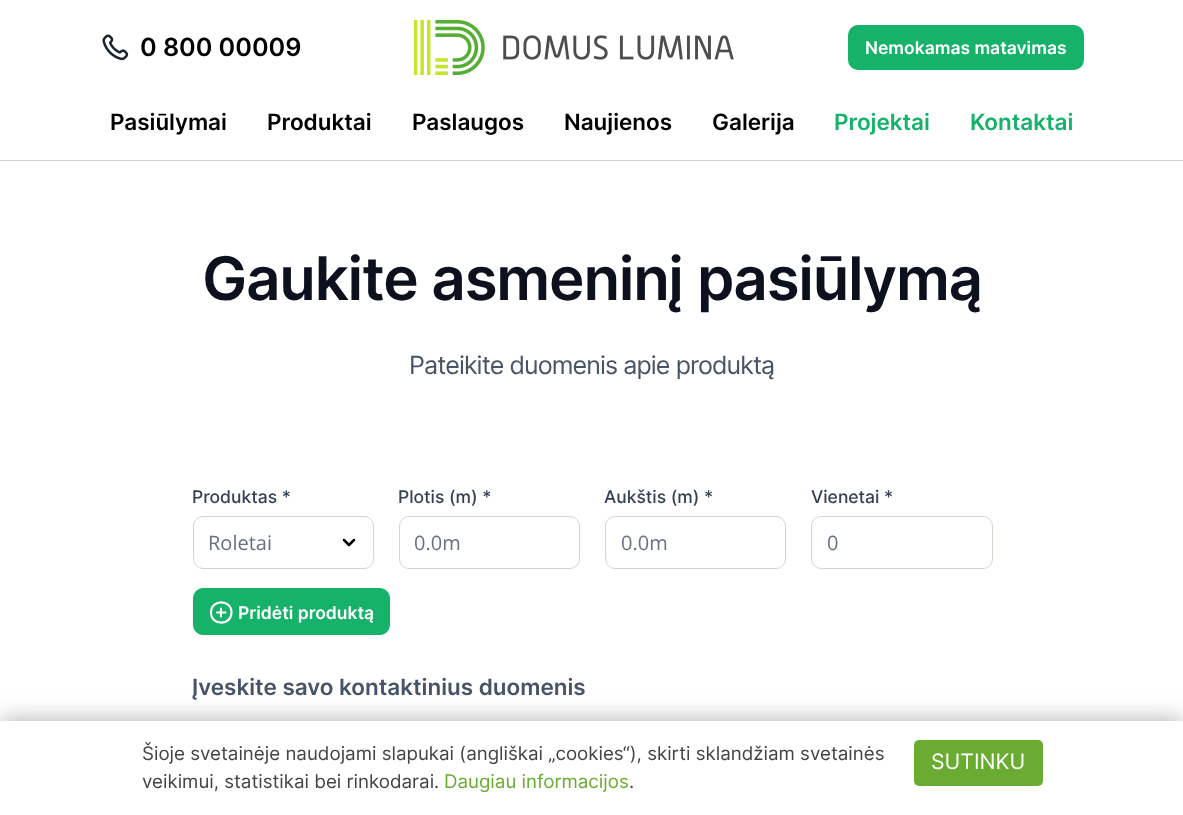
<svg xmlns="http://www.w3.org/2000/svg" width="1183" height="815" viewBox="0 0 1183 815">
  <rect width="100%" height="100%" fill="#fff"/>
  <path d="M0 160h1183v1H0z" fill="#d0d5dd"/>
  <image x="102" y="34" width="27" height="27" href="img/1.png"/>
  <image x="414" y="20" width="320" height="55" href="img/2.png"/>
  <rect x="848" y="25" width="236" height="45" rx="10" fill="#17b26a"/>
  <path d="M344 540L349 545L354 540" fill="none" stroke="#000" stroke-width="2.5" stroke-linecap="round" stroke-linejoin="round"/>
  <rect x="193.5" y="516.5" width="180" height="52" rx="9.5" fill="none" stroke="#d0d5dd"/>
  <rect x="399.5" y="516.5" width="180" height="52" rx="9.5" fill="none" stroke="#d0d5dd"/>
  <rect x="605.5" y="516.5" width="180" height="52" rx="9.5" fill="none" stroke="#d0d5dd"/>
  <rect x="811.5" y="516.5" width="181" height="52" rx="9.5" fill="none" stroke="#d0d5dd"/>
  <rect x="193" y="589" width="197" height="47" rx="10" fill="#1018280d" filter="blur(1px)"/>
  <rect x="193.5" y="588.5" width="196" height="46" rx="9.5" fill="#17b26a" stroke="#17b26a"/>
  <path d="M221 608.5V616.5M217 612.5H225.5M231.5 612.5C231.5 626 211 626 211 612.5C211 599 231.5 599 231.5 612.5Z" fill="none" stroke="#fff" stroke-width="2.1" stroke-linecap="round" stroke-linejoin="round"/>
  <path d="M0 721h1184v94H0z" fill="#47474773" filter="blur(12px)"/>
  <path d="M0 721h1183v94H0z" fill="#fff"/>
  <rect x="914" y="740" width="129" height="46" rx="5" fill="#6aac31"/>
  <text x="140" y="56" font-family="Inter" font-size="25" font-weight="600" fill="#000">0 800 00009</text>
  <text x="865" y="54" font-family="Inter" font-size="17.5" font-weight="600" fill="#fff">Nemokamas matavimas</text>
  <g font-family="Inter" font-size="22.5" font-weight="600" fill="#000">
    <text x="110" y="130">Pasiūlymai</text>
    <text x="267" y="130">Produktai</text>
    <text x="412" y="130">Paslaugos</text>
    <text x="564" y="130">Naujienos</text>
    <text x="712" y="130">Galerija</text>
  </g>
  <g font-family="Inter" font-size="22.5" font-weight="600" fill="#17b26a">
    <text x="834" y="130">Projektai</text>
    <text x="970" y="130">Kontaktai</text>
  </g>
  <text x="202" y="300" font-family="Inter" font-size="60" font-weight="600" letter-spacing="-1.2" fill="#0c111d">Gaukite asmeninį pasiūlymą</text>
  <text x="409" y="374" font-family="Inter" font-size="25" letter-spacing="-0.9" fill="#475467">Pateikite duomenis apie produktą</text>
  <g font-family="Inter" font-size="17.5" font-weight="500" fill="#344054">
    <text x="192" y="503">Produktas *</text>
    <text x="398" y="503">Plotis (m) *</text>
    <text x="604" y="503">Aukštis (m) *</text>
    <text x="811" y="503">Vienetai *</text>
  </g>
  <g font-family="Open Sans" font-size="20" fill="#667085">
    <text x="208" y="550">Roletai</text>
    <text x="414" y="550">0.0m</text>
    <text x="621" y="550">0.0m</text>
    <text x="827" y="550">0</text>
  </g>
  <text x="238" y="619" font-family="Inter" font-size="17.5" font-weight="600" fill="#fff">Pridėti produktą</text>
  <text x="192" y="695" font-family="Inter" font-size="22.5" font-weight="600" fill="#475467">Įveskite savo kontaktinius duomenis</text>
  <g font-family="Inter" font-size="18.75" fill="#444">
    <text x="142" y="760">Šioje svetainėje naudojami slapukai (angliškai „cookies“), skirti sklandžiam svetainės</text>
    <text x="142" y="788">veikimui, statistikai bei rinkodarai.</text>
  </g>
  <text x="444" y="788" font-family="Inter" font-size="18.75" fill="#6aac31">Daugiau informacijos</text>
  <text x="629" y="788" font-family="Inter" font-size="18.75" fill="#444">.</text>
  <text x="931" y="769" font-family="Inter" font-size="21.25" fill="#fff">SUTINKU</text>
</svg>
